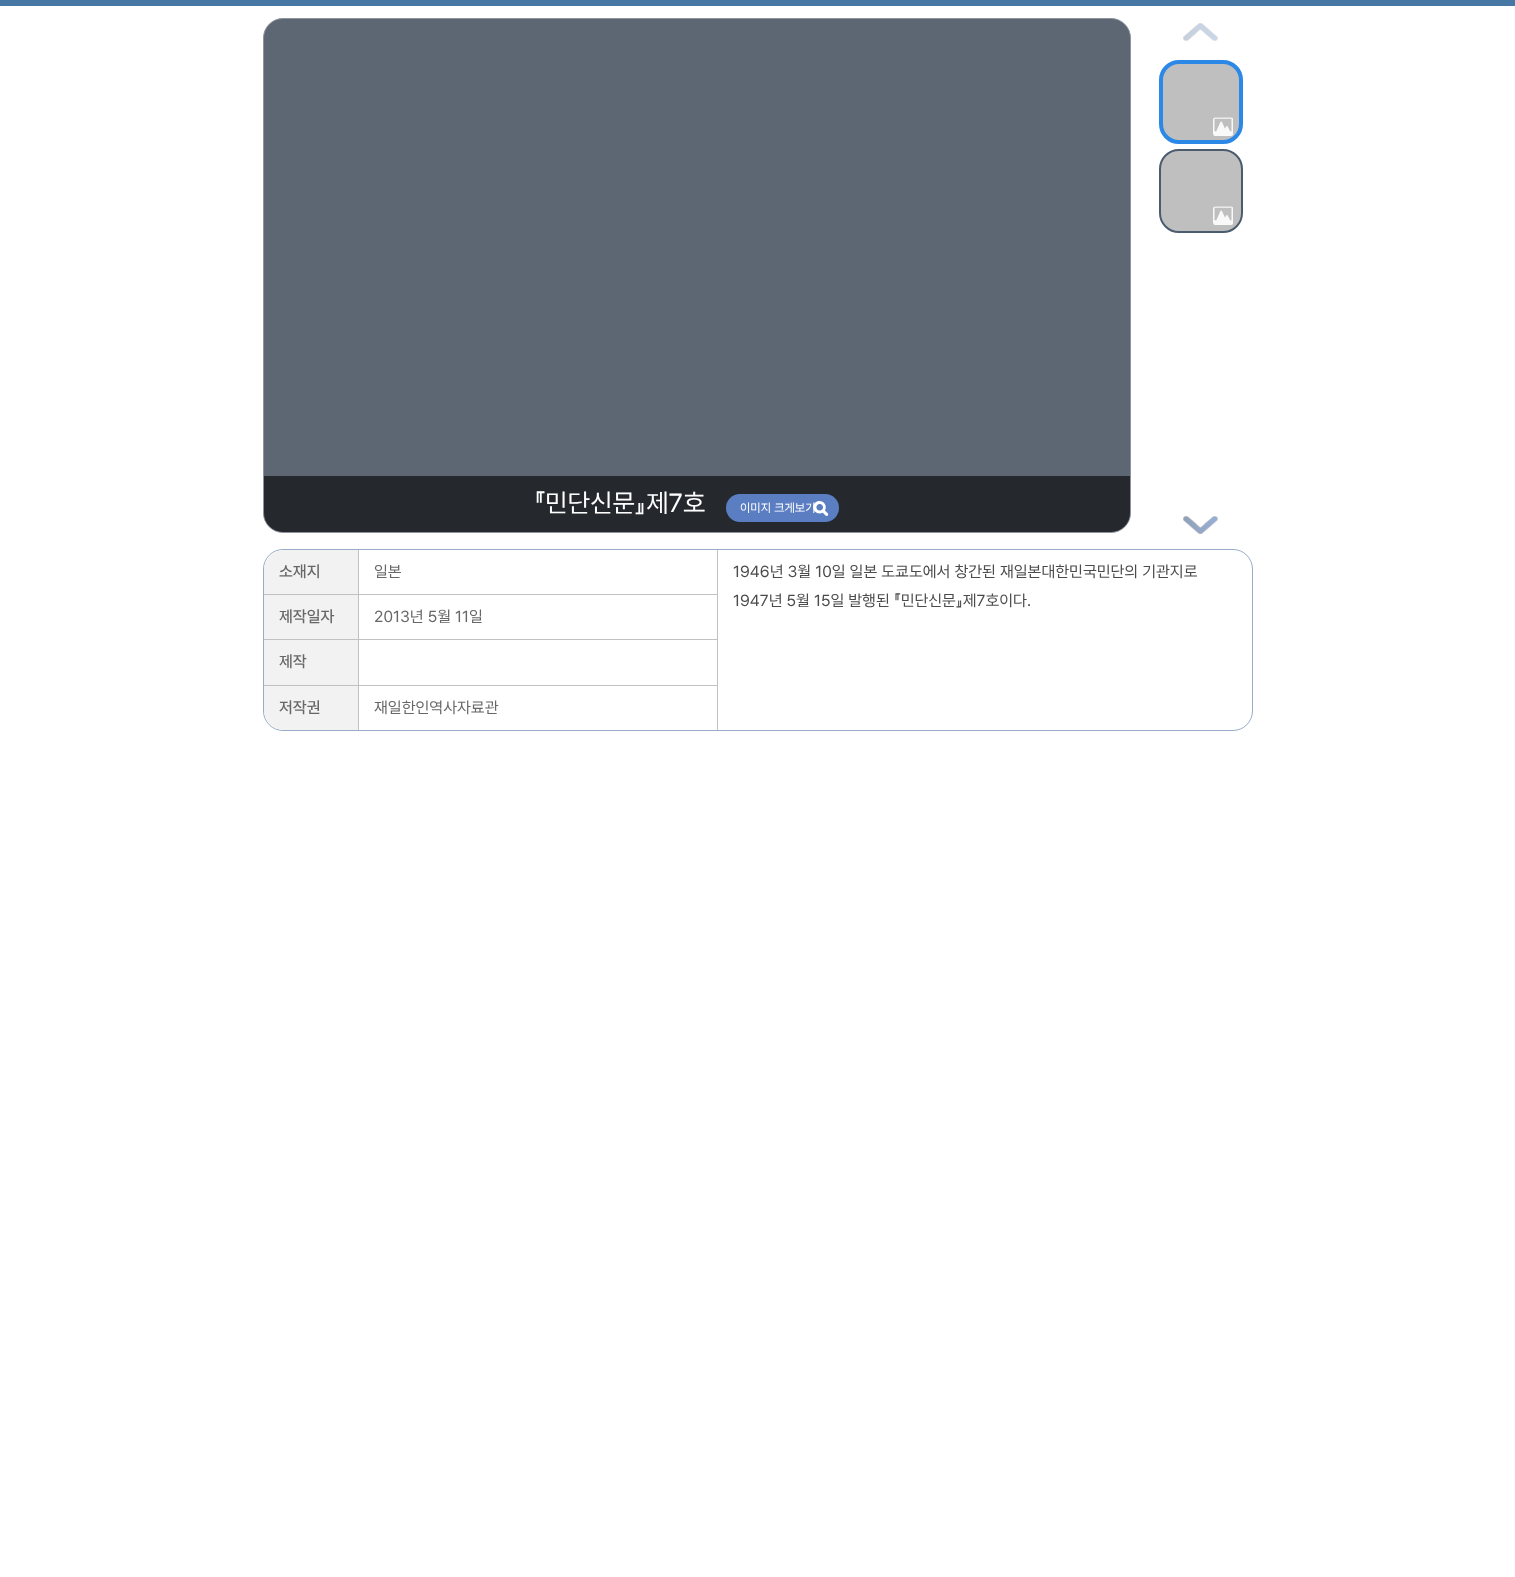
<svg xmlns="http://www.w3.org/2000/svg" width="1515" height="1577" viewBox="0 0 1515 1577">
  <defs>
    <clipPath id="clip1"><rect x="264" y="550" width="988" height="180" rx="19"/></clipPath>
  </defs>
  <rect width="100%" height="100%" fill="#fff"/>
  <path d="M0 0h1515v6H0z" fill="#4677a5"/>
  <image x="1183" y="23" width="35" height="18" href="img/1.png"/>
  <image x="1183" y="516" width="35" height="18" href="img/2.png"/>
  <rect x="1161" y="62" width="80" height="80" rx="18" fill="#bfbfbf" stroke="#2b88e7" stroke-width="4"/>
  <image x="1213" y="117" width="20" height="19" href="img/3.png"/>
  <rect x="1160" y="150" width="82" height="82" rx="19" fill="#bfbfbf" stroke="#4b5c6e" stroke-width="2"/>
  <image x="1213" y="206" width="20" height="19" href="img/3.png"/>
  <rect x="263.5" y="18.5" width="867" height="514" rx="19.5" fill="#5d6774" stroke="#8d949e"/>
  <path d="M264 476H1130V513C1130 523.5 1121.5 532 1111 532H283C272.5 532 264 523.5 264 513Z" fill="#00000099"/>
  <rect x="726" y="494" width="113" height="28" rx="14" fill="#5b7ec2"/>
  <rect x="263.5" y="549.5" width="989" height="181" rx="19.5" fill="none" stroke="#99adc9"/>
  <g clip-path="url(#clip1)">
    <path d="M284 550H359V595H264V570C264 559 273 550 284 550Z" fill="#f2f2f2"/>
  </g>
  <path d="M264 595h94v44H264z" fill="#f2f2f2"/>
  <path d="M264 594h454v1H264z" fill="#c1c1c1"/>
  <path d="M264 639h454v1H264z" fill="#c1c1c1"/>
  <g clip-path="url(#clip1)">
    <path d="M264 685H359V730H284C273 730 264 721 264 710Z" fill="#f2f2f2"/>
  </g>
  <path d="M264 685h454v1H264z" fill="#c1c1c1"/>
  <path d="M358 685h1v45H358z" fill="#c1c1c1"/>
  <path d="M358 639h1v47H358z" fill="#c1c1c1"/>
  <path d="M358 550h1v90H358z" fill="#c1c1c1"/>
  <path d="M717 685h1v45H717z" fill="#c1c1c1"/>
  <path d="M717 639h1v47H717z" fill="#c1c1c1"/>
  <path d="M717 550h1v90H717z" fill="#c1c1c1"/>
  <path d="M264 640h94v45H264z" fill="#f2f2f2"/>
  <text x="534" y="512" font-family="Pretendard" font-size="26" fill="#fff">『민단신문』제7호</text>
  <text x="740" y="512" font-family="Pretendard" font-size="12" fill="#fff">이미지 크게보기</text>
  <image x="813" y="501" width="16" height="15" href="img/4.png"/>
  <text x="279" y="577" font-family="Pretendard" font-size="16" font-weight="500" fill="#676767">소재지</text>
  <text x="374" y="577" font-family="Pretendard" font-size="16" fill="#676767">일본</text>
  <text x="279" y="622" font-family="Pretendard" font-size="16" font-weight="500" fill="#676767">제작일자</text>
  <text x="374" y="622" font-family="Pretendard" font-size="16" fill="#676767">2013년 5월 11일</text>
  <g font-family="Pretendard" font-size="16" font-weight="500" fill="#676767">
    <text x="279" y="667">제작</text>
    <text x="279" y="713">저작권</text>
  </g>
  <text x="374" y="713" font-family="Pretendard" font-size="16" fill="#676767">재일한인역사자료관</text>
  <g font-family="Pretendard" font-size="16" fill="#4b4b4b">
    <text x="733" y="577">1946년 3월 10일 일본 도쿄도에서 창간된 재일본대한민국민단의 기관지로</text>
    <text x="733" y="606">1947년 5월 15일 발행된 『민단신문』제7호이다.</text>
  </g>
</svg>
